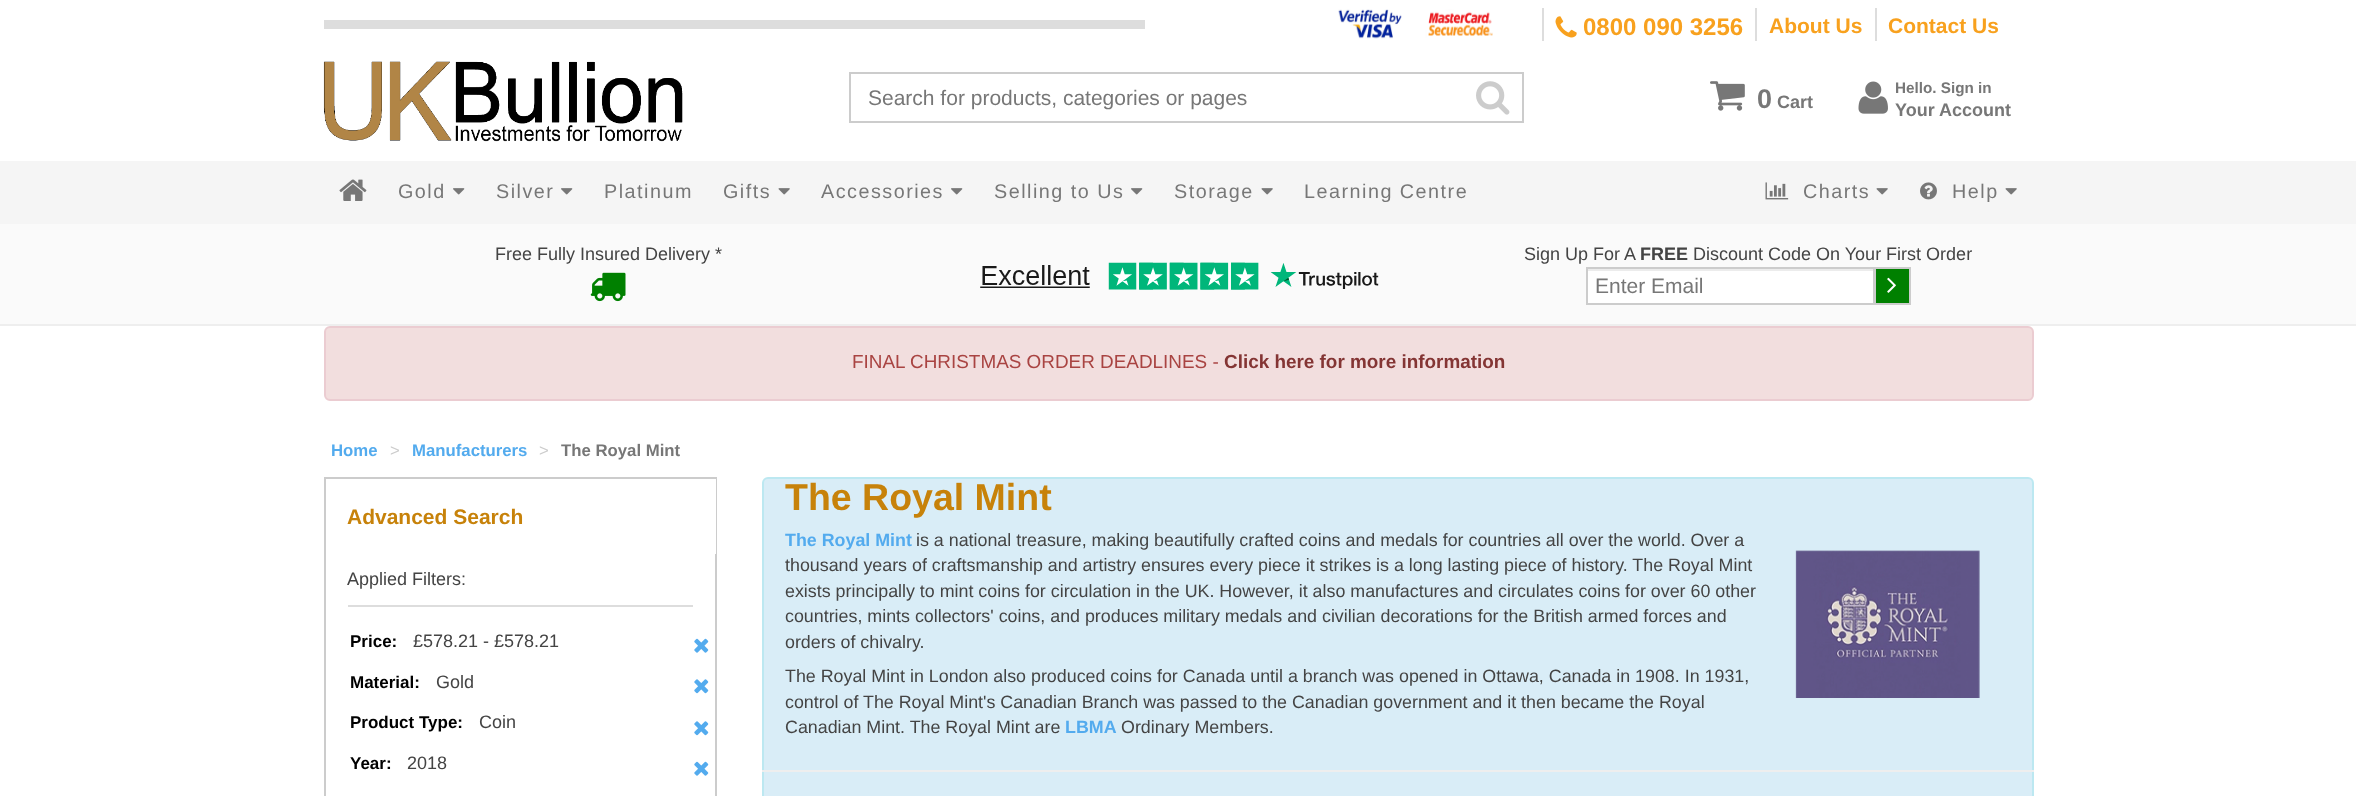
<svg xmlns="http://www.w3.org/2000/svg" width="2356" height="796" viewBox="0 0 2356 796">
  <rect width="100%" height="100%" fill="#fff"/>
  <path d="M324 20h821v9H324z" fill="#ddd"/>
  <path d="M1542 8h2v33H1542z" fill="#ddd"/>
  <image x="1338" y="9" width="155" height="30" href="img/1.png"/>
  <path d="M1755 8h2v33H1755z" fill="#ddd"/>
  <image x="1555" y="16" width="22" height="22" href="img/2.png"/>
  <path d="M1875 8h2v33H1875z" fill="#ddd"/>
  <image x="323" y="61" width="360" height="81" href="img/3.png"/>
  <image x="1710" y="81" width="35" height="30" href="img/4.png"/>
  <image x="1858" y="81" width="30" height="33" href="img/5.png"/>
  <path d="M0 161h2356v63H0z" fill="#f5f5f5"/>
  <path d="M850 73h673v49H850z" fill="none" stroke="#ccc" stroke-width="2"/>
  <image x="1476" y="81" width="34" height="34" href="img/6.png"/>
  <image x="339" y="179" width="28" height="22" href="img/7.png"/>
  <image x="453" y="188" width="12" height="7" href="img/8.png"/>
  <image x="561" y="188" width="12" height="7" href="img/8.png"/>
  <image x="778" y="188" width="12" height="7" href="img/9.png"/>
  <image x="951" y="188" width="12" height="7" href="img/8.png"/>
  <image x="1131" y="188" width="12" height="7" href="img/8.png"/>
  <image x="1261" y="188" width="12" height="7" href="img/9.png"/>
  <image x="1765" y="182" width="24" height="18" href="img/10.png"/>
  <image x="1876" y="188" width="12" height="7" href="img/9.png"/>
  <image x="1920" y="182" width="17" height="18" href="img/11.png"/>
  <image x="2005" y="188" width="12" height="7" href="img/9.png"/>
  <path d="M0 224h2356v100H0z" fill="#fafafa"/>
  <path d="M0 324h2356v2H0z" fill="#eee"/>
  <image x="590" y="272" width="36" height="30" href="img/12.png"/>
  <image x="980" y="262" width="399" height="28" href="img/13.png"/>
  <path d="M1588 271h285v32H1588z" fill="#fff"/>
  <path d="M1587 269h287v2H1587z" fill="#ececec"/>
  <path d="M1875 268h35v36H1875z" fill="#008000" stroke="#ccc" stroke-width="2"/>
  <path d="M1587 268h287v36H1587z" fill="none" stroke="#ccc" stroke-width="2"/>
  <image x="1887" y="277" width="9" height="16" href="img/14.png"/>
  <rect x="325" y="327" width="1708" height="73" rx="5" fill="#f2dede" stroke="#ebccd1" stroke-width="2"/>
  <path d="M325 478h391v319H325z" fill="none" stroke="#ccc" stroke-width="2"/>
  <path d="M715 479h1v75H715z" fill="#fff"/>
  <path d="M348 605h345v2H348z" fill="#ddd"/>
  <image x="694" y="638" width="15" height="15" href="img/15.png"/>
  <image x="694" y="679" width="15" height="15" href="img/16.png"/>
  <image x="694" y="721" width="15" height="15" href="img/16.png"/>
  <image x="694" y="761" width="15" height="15" href="img/15.png"/>
  <rect x="763" y="478" width="1270" height="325" rx="5" fill="#d9edf7" stroke="#bce8f1" stroke-width="2"/>
  <path d="M762 770h1272v2H762z" fill="#eee"/>
  <image x="1795" y="550" width="185" height="148" href="img/17.png"/>
  <text x="1583" y="35" font-family="Liberation Sans" font-size="24" font-weight="bold" fill="#f8a11e">0800 090 3256</text>
  <g font-family="Liberation Sans" font-size="21" font-weight="bold" fill="#f8a11e">
    <text x="1769" y="33">About Us</text>
    <text x="1888" y="33">Contact Us</text>
  </g>
  <text x="1757" y="108" font-family="Liberation Sans" font-size="27" font-weight="bold" fill="#777">0</text>
  <text x="1777" y="108" font-family="Liberation Sans" font-size="18" font-weight="bold" fill="#777">Cart</text>
  <text x="1895" y="93" font-family="Liberation Sans" font-size="15.25" font-weight="bold" fill="#777">Hello. Sign in</text>
  <text x="1895" y="116" font-family="Liberation Sans" font-size="18" font-weight="bold" fill="#777">Your Account</text>
  <text x="868" y="105" font-family="Liberation Sans" font-size="21" fill="#777">Search for products, categories or pages</text>
  <g font-family="Liberation Sans" font-size="19.75" letter-spacing="1.5" fill="#777">
    <text x="398" y="198">Gold</text>
    <text x="496" y="198">Silver</text>
    <text x="604" y="198">Platinum</text>
    <text x="723" y="198">Gifts</text>
    <text x="821" y="198">Accessories</text>
    <text x="994" y="198">Selling to Us</text>
    <text x="1174" y="198">Storage</text>
    <text x="1304" y="198">Learning Centre</text>
    <text x="1803" y="198">Charts</text>
    <text x="1952" y="198">Help</text>
  </g>
  <g font-family="Liberation Sans" font-size="18" fill="#444">
    <text x="495" y="260">Free Fully Insured Delivery *</text>
    <text x="1524" y="260">Sign Up For A</text>
  </g>
  <text x="1640" y="260" font-family="Liberation Sans" font-size="18" font-weight="bold" fill="#444">FREE</text>
  <text x="1693" y="260" font-family="Liberation Sans" font-size="18" fill="#444">Discount Code On Your First Order</text>
  <text x="1595" y="293" font-family="Liberation Sans" font-size="21" fill="#777">Enter Email</text>
  <text x="852" y="368" font-family="Liberation Sans" font-size="18.9" fill="#a94442">FINAL CHRISTMAS ORDER DEADLINES -</text>
  <text x="1224" y="368" font-family="Liberation Sans" font-size="18.9" font-weight="bold" fill="#843534">Click here for more information</text>
  <text x="331" y="456" font-family="Liberation Sans" font-size="16.75" font-weight="bold" fill="#53abee">Home</text>
  <text x="390" y="456" font-family="Liberation Sans" font-size="16.75" fill="#ccc">&gt;</text>
  <text x="412" y="456" font-family="Liberation Sans" font-size="16.75" font-weight="bold" fill="#53abee">Manufacturers</text>
  <text x="539" y="456" font-family="Liberation Sans" font-size="16.75" fill="#ccc">&gt;</text>
  <text x="561" y="456" font-family="Liberation Sans" font-size="16.75" font-weight="bold" fill="#777">The Royal Mint</text>
  <text x="347" y="524" font-family="Liberation Sans" font-size="21" font-weight="bold" fill="#c7820a">Advanced Search</text>
  <text x="347" y="585" font-family="Liberation Sans" font-size="18" fill="#444">Applied Filters:</text>
  <text x="350" y="647" font-family="Liberation Sans" font-size="17" font-weight="bold" fill="#000">Price:</text>
  <text x="413" y="647" font-family="Liberation Sans" font-size="18" fill="#444">£578.21 - £578.21</text>
  <text x="350" y="688" font-family="Liberation Sans" font-size="17" font-weight="bold" fill="#000">Material:</text>
  <text x="436" y="688" font-family="Liberation Sans" font-size="18" fill="#444">Gold</text>
  <text x="350" y="728" font-family="Liberation Sans" font-size="17" font-weight="bold" fill="#000">Product Type:</text>
  <text x="479" y="728" font-family="Liberation Sans" font-size="18" fill="#444">Coin</text>
  <text x="350" y="769" font-family="Liberation Sans" font-size="17" font-weight="bold" fill="#000">Year:</text>
  <text x="407" y="769" font-family="Liberation Sans" font-size="18" fill="#444">2018</text>
  <text x="785" y="510" font-family="Liberation Sans" font-size="37.5" font-weight="bold" fill="#c7820a">The Royal Mint</text>
  <text x="785" y="546" font-family="Liberation Sans" font-size="17.85" font-weight="bold" fill="#53abee">The Royal Mint</text>
  <g font-family="Liberation Sans" font-size="17.85" fill="#444">
    <text x="916" y="546">is a national treasure, making beautifully crafted coins and medals for countries all over the world. Over a</text>
    <text x="785" y="571">thousand years of craftsmanship and artistry ensures every piece it strikes is a long lasting piece of history. The Royal Mint</text>
    <text x="785" y="597">exists principally to mint coins for circulation in the UK. However, it also manufactures and circulates coins for over 60 other</text>
    <text x="785" y="622">countries, mints collectors' coins, and produces military medals and civilian decorations for the British armed forces and</text>
    <text x="785" y="648">orders of chivalry.</text>
    <text x="785" y="682">The Royal Mint in London also produced coins for Canada until a branch was opened in Ottawa, Canada in 1908. In 1931,</text>
    <text x="785" y="708">control of The Royal Mint's Canadian Branch was passed to the Canadian government and it then became the Royal</text>
    <text x="785" y="733">Canadian Mint. The Royal Mint are</text>
  </g>
  <text x="1065" y="733" font-family="Liberation Sans" font-size="17.85" font-weight="bold" fill="#53abee">LBMA</text>
  <text x="1121" y="733" font-family="Liberation Sans" font-size="17.85" fill="#444">Ordinary Members.</text>
</svg>
